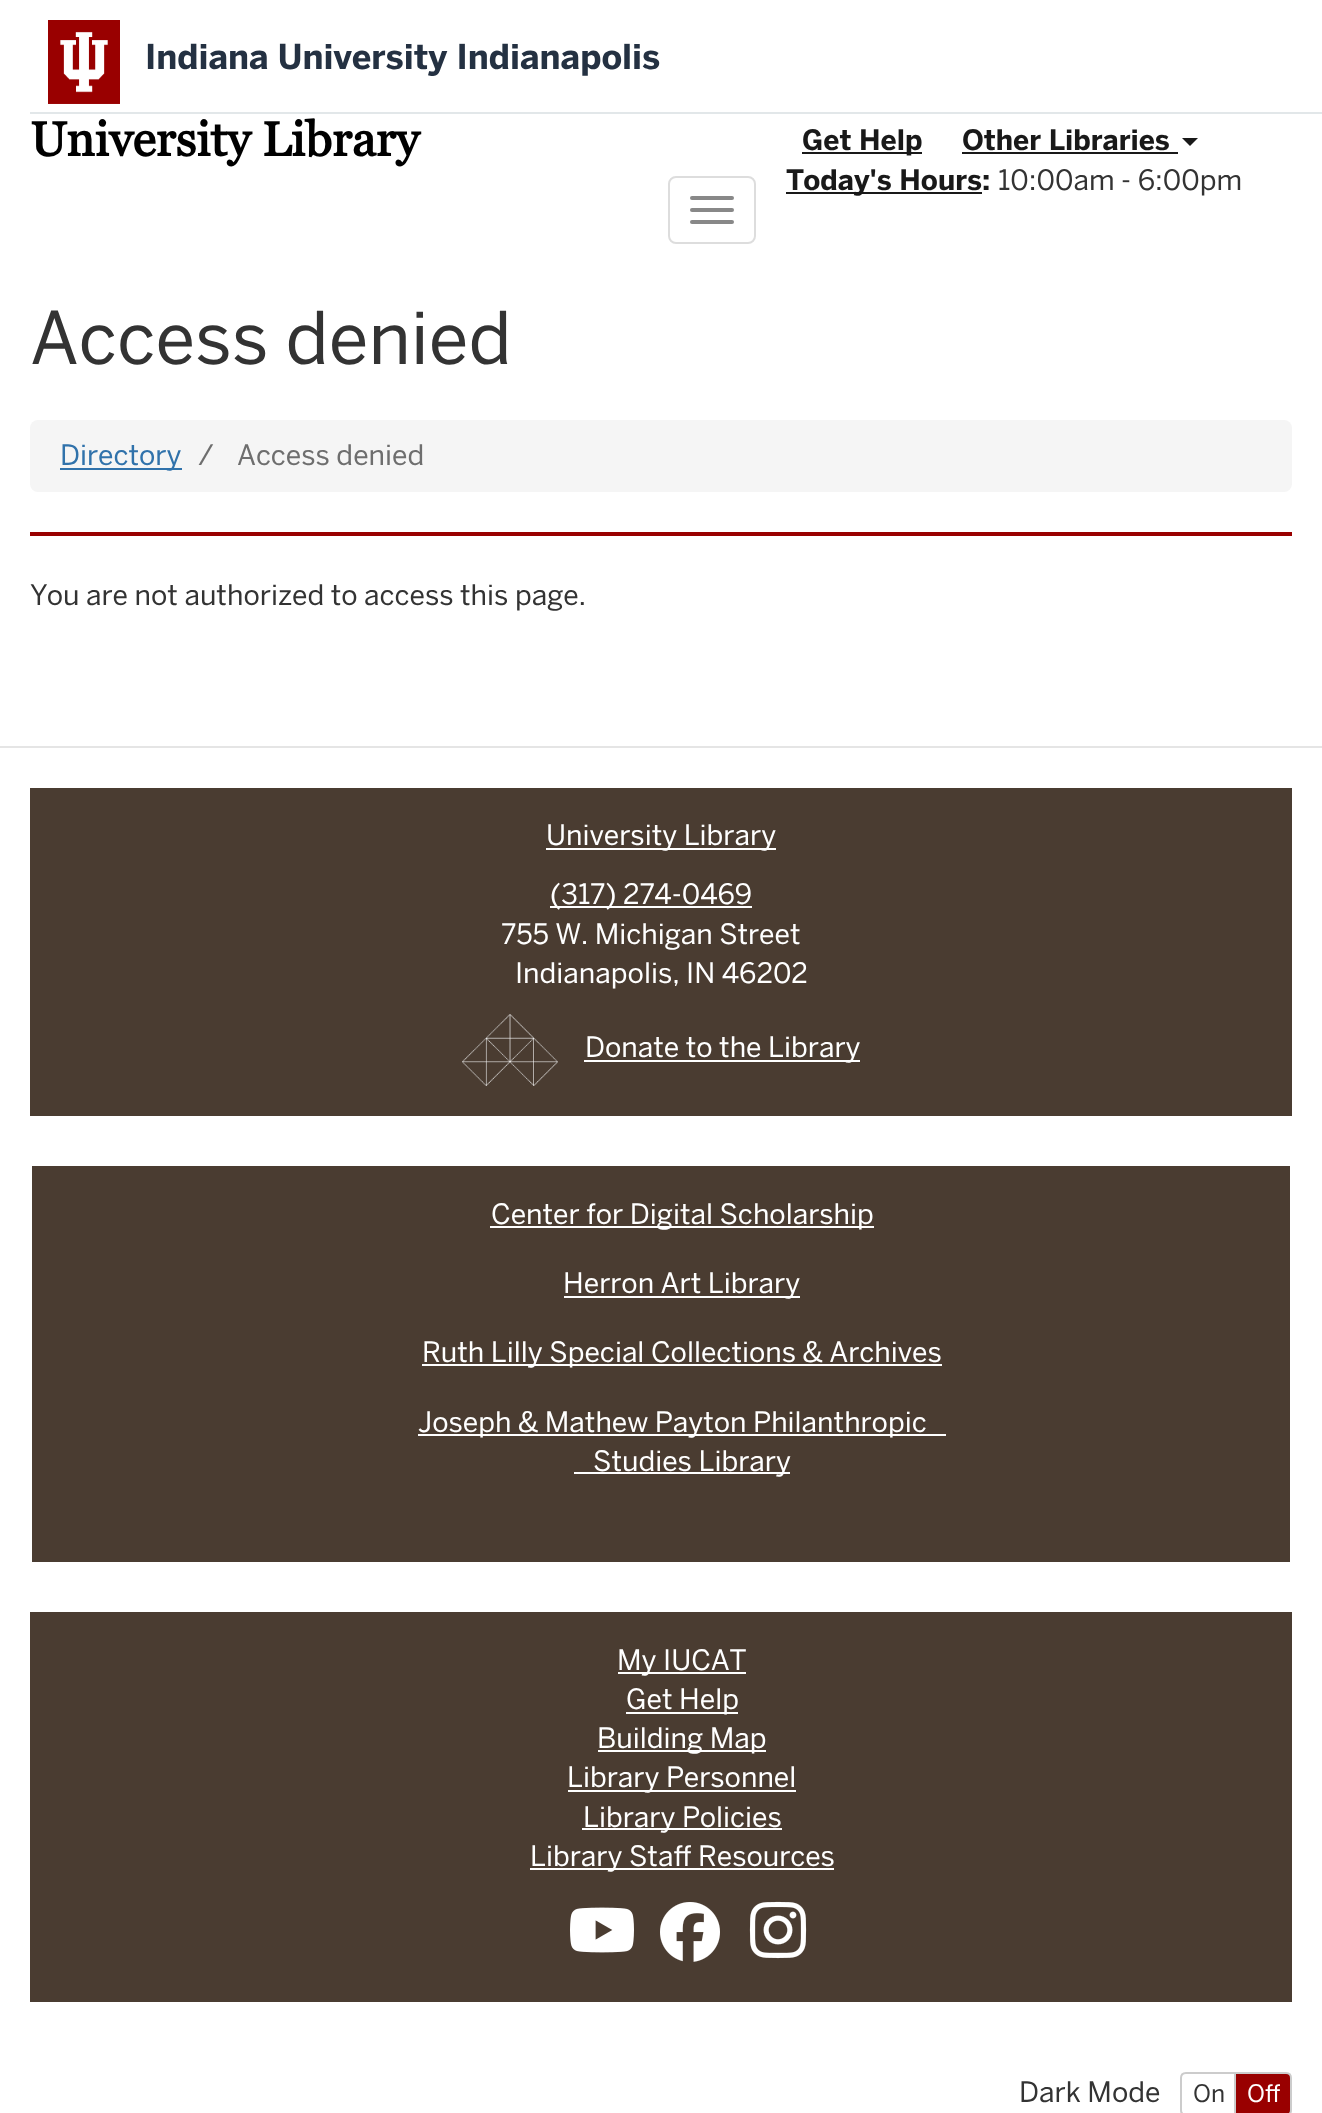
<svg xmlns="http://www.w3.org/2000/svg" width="1322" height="2113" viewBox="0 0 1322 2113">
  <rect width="100%" height="100%" fill="#fff"/>
  <path d="M30 112h1292v2H30z" fill="#e2e7e9"/>
  <image x="48" y="20" width="72" height="84" href="img/1.png"/>
  <path d="M802 152h120v2H802z" fill="#191919"/>
  <path d="M962 152h216v2H962z" fill="#191919"/>
  <path d="M1182 138H1198L1190 146Z" fill="#191919"/>
  <path d="M786 192h196v2H786z" fill="#191919"/>
  <rect x="669" y="177" width="86" height="66" rx="7" fill="none" stroke="#ddd" stroke-width="2"/>
  <rect x="690" y="196" width="44" height="4" rx="2" fill="#888"/>
  <rect x="690" y="208" width="44" height="4" rx="2" fill="#888"/>
  <rect x="690" y="220" width="44" height="4" rx="2" fill="#888"/>
  <rect x="30" y="420" width="1262" height="72" rx="8" fill="#f5f5f5"/>
  <path d="M60 468h122v2H60z" fill="#3072ab"/>
  <path d="M30 532h1262v4H30z" fill="#900"/>
  <path d="M0 746h1322v2H0z" fill="#e5e5e5"/>
  <path d="M30 788h1262v328H30z" fill="#4a3c31"/>
  <path d="M546 848h230v2H546z" fill="#fff"/>
  <path d="M550 906h202v2H550z" fill="#fff"/>
  <image x="462" y="1014" width="96" height="72" href="img/2.png"/>
  <path d="M584 1060h276v2H584z" fill="#fff"/>
  <path d="M32 1166h1258v396H32z" fill="#4a3c31"/>
  <path d="M490 1226h384v2H490z" fill="#fff"/>
  <path d="M564 1296h236v2H564z" fill="#fff"/>
  <path d="M422 1364h520v2H422z" fill="#fff"/>
  <path d="M418 1434h528v2H418z" fill="#fff"/>
  <path d="M574 1472h216v2H574z" fill="#fff"/>
  <path d="M30 1612h1262v390H30z" fill="#4a3c31"/>
  <path d="M618 1672h128v2H618z" fill="#fff"/>
  <path d="M626 1712h112v2H626z" fill="#fff"/>
  <path d="M598 1750h168v2H598z" fill="#fff"/>
  <path d="M568 1790h228v2H568z" fill="#fff"/>
  <path d="M582 1828h200v2H582z" fill="#fff"/>
  <path d="M530 1868h304v2H530z" fill="#fff"/>
  <image x="570" y="1907" width="64" height="46" href="img/3.png"/>
  <image x="660" y="1902" width="60" height="60" href="img/4.png"/>
  <image x="749" y="1901" width="58" height="58" href="img/5.png"/>
  <path d="M1186 2073H1235V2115H1186C1183 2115 1181 2113 1181 2110V2078C1181 2075 1183 2073 1186 2073Z" fill="none" stroke="#ccc" stroke-width="2"/>
  <path d="M1235 2073H1286C1289 2073 1291 2075 1291 2078V2110C1291 2113 1289 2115 1286 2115H1235Z" fill="#900" stroke="#ccc" stroke-width="2"/>
  <text x="145" y="69" font-family="'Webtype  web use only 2'" font-size="34" font-weight="bold" fill="#243142">Indiana University Indianapolis</text>
  <text x="30" y="156" font-family="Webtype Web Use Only" font-size="48" font-weight="bold" fill="#000">University Library</text>
  <g font-family="'Webtype  web use only 2'" font-size="28" font-weight="bold" fill="#191919">
    <text x="802" y="150">Get Help</text>
    <text x="962" y="150">Other Libraries</text>
    <text x="786" y="190">Today's Hours:</text>
  </g>
  <text x="998" y="190" font-family="'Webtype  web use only'" font-size="28" fill="#333">10:00am - 6:00pm</text>
  <text x="30" y="364" font-family="'Webtype  web use only'" font-size="72" fill="#333">Access denied</text>
  <text x="60" y="465" font-family="'Webtype  web use only'" font-size="28" fill="#3072ab">Directory</text>
  <g font-family="'Webtype  web use only'" font-size="28" fill="#6e6e6e">
    <text x="198" y="465">/</text>
    <text x="237" y="465">Access denied</text>
  </g>
  <text x="30" y="605" font-family="'Webtype  web use only'" font-size="28" fill="#333">You are not authorized to access this page.</text>
  <g font-family="'Webtype  web use only'" font-size="28" fill="#fff">
    <text x="546" y="845">University Library</text>
    <text x="550" y="904">(317) 274-0469</text>
    <text x="501" y="944">755 W. Michigan Street</text>
    <text x="515" y="983">Indianapolis, IN 46202</text>
    <text x="585" y="1057">Donate to the Library</text>
    <text x="491" y="1224">Center for Digital Scholarship</text>
    <text x="563" y="1293">Herron Art Library</text>
    <text x="422" y="1362">Ruth Lilly Special Collections &amp; Archives</text>
    <text x="418" y="1432">Joseph &amp; Mathew Payton Philanthropic</text>
    <text x="593" y="1471">Studies Library</text>
    <text x="617" y="1670">My IUCAT</text>
    <text x="626" y="1709">Get Help</text>
    <text x="597" y="1748">Building Map</text>
    <text x="567" y="1787">Library Personnel</text>
    <text x="583" y="1827">Library Policies</text>
    <text x="530" y="1866">Library Staff Resources</text>
  </g>
  <text x="1019" y="2102" font-family="'Webtype  web use only'" font-size="28" fill="#333">Dark Mode</text>
  <text x="1193" y="2102" font-family="'Webtype  web use only'" font-size="24" fill="#333">On</text>
  <text x="1247" y="2102" font-family="'Webtype  web use only'" font-size="24" fill="#fff">Off</text>
</svg>
